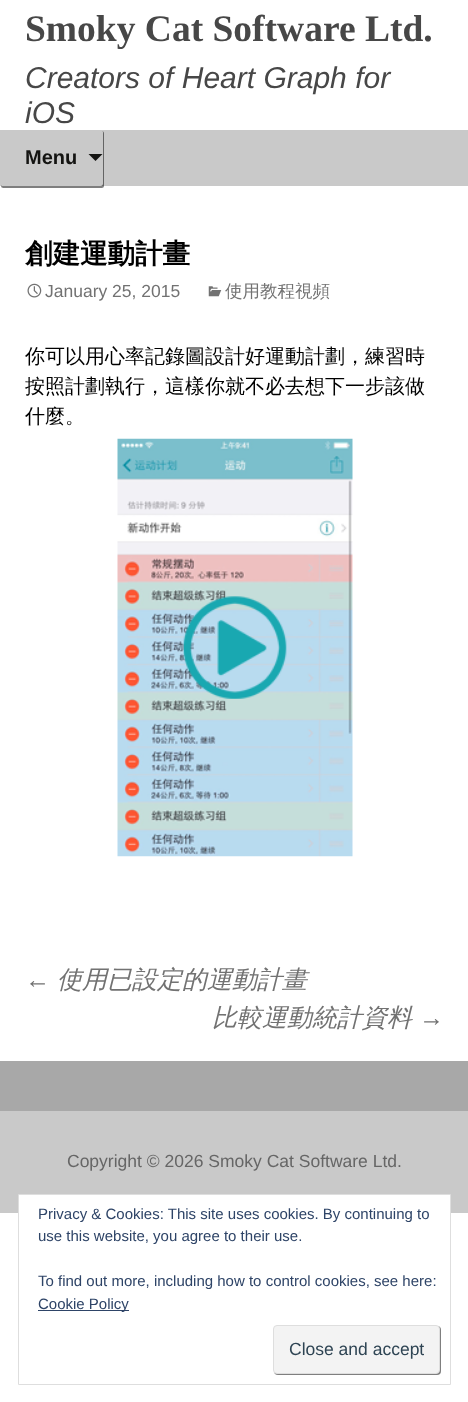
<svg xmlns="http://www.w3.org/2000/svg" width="468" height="1402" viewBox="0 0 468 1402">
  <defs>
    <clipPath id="clip1"><path d="M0 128H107V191H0ZM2.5 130H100.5C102 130 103 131 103 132.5V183.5C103 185 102 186 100.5 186H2.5C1 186 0 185 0 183.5V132.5C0 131 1 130 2.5 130Z" clip-rule="evenodd"/></clipPath>
  </defs>
  <rect width="100%" height="100%" fill="#fff"/>
  <path d="M0 130h468v56H0z" fill="#c9c9c9"/>
  <g clip-path="url(#clip1)">
    <rect x="1" y="131" width="103" height="57" rx="2.5" fill="#00000080" filter="blur(0.5px)"/>
  </g>
  <path d="M88.5 154H102.5L95.5 161Z" fill="#141412"/>
  <image x="27" y="283" width="15" height="15" href="img/1.png"/>
  <image x="208" y="286" width="14" height="11" href="img/2.png"/>
  <image x="117" y="438" width="236" height="419" href="img/3.png"/>
  <path d="M0 1111h468v102H0z" fill="#c9c9c9"/>
  <path d="M0 1061h468v50H0z" fill="#a8a8a8"/>
  <path d="M19 1195h431v18H19z" fill="#fff"/>
  <path d="M18.5 1194.5h432v190H18.5z" fill="none" stroke="#dedede"/>
  <path d="M38 1310h91v1H38z" fill="#2e4467"/>
  <rect x="274" y="1326" width="167" height="49" rx="4" fill="#00000080" filter="blur(0.5px)"/>
  <rect x="273.5" y="1325.5" width="166" height="48" rx="3.5" fill="#f3f3f3" stroke="#dedede"/>
  <text x="25" y="41" font-family="Liberation Serif" font-size="37.5" font-weight="bold" fill="#474747">Smoky Cat Software Ltd.</text>
  <g font-family="Liberation Sans" font-size="30" font-style="italic" fill="#474747">
    <text x="25" y="88">Creators of Heart Graph for</text>
    <text x="25" y="123">iOS</text>
  </g>
  <text x="25" y="164" font-family="Liberation Sans" font-size="20" font-weight="bold" fill="#141412">Menu</text>
  <text x="25" y="263" font-family="WenQuanYi Zen Hei" font-size="27.5" font-weight="bold" fill="#000">創建運動計畫</text>
  <text x="45" y="297" font-family="Liberation Sans" font-size="17.5" fill="#727272">January 25, 2015</text>
  <text x="225" y="297" font-family="WenQuanYi Zen Hei" font-size="17.5" font-weight="500" fill="#727272">使用教程視頻</text>
  <g font-family="WenQuanYi Zen Hei" font-size="20" font-weight="500" fill="#000">
    <text x="25" y="363">你可以用心率記錄圖設計好運動計劃，練習時</text>
    <text x="25" y="393">按照計劃執行，這樣你就不必去想下一步該做</text>
    <text x="25" y="423">什麼。</text>
  </g>
  <text x="25" y="988" font-family="Liberation Sans" font-size="25" font-style="italic" fill="#727272">←</text>
  <g font-family="WenQuanYi Zen Hei" font-size="25" font-weight="500" font-style="italic" fill="#727272">
    <text x="57" y="988">使用已設定的運動計畫</text>
    <text x="212" y="1026">比較運動統計資料</text>
  </g>
  <text x="419" y="1026" font-family="Liberation Sans" font-size="25" font-style="italic" fill="#727272">→</text>
  <text x="67" y="1167" font-family="Liberation Sans" font-size="17.5" fill="#666">Copyright © 2026 Smoky Cat Software Ltd.</text>
  <g font-family="Liberation Sans" font-size="15" fill="#2e4467">
    <text x="38" y="1219">Privacy &amp; Cookies: This site uses cookies. By continuing to</text>
    <text x="38" y="1241">use this website, you agree to their use.</text>
    <text x="38" y="1286">To find out more, including how to control cookies, see here:</text>
    <text x="38" y="1309">Cookie Policy</text>
  </g>
  <text x="289" y="1355" font-family="Liberation Sans" font-size="17.5" fill="#2e4453">Close and accept</text>
</svg>
